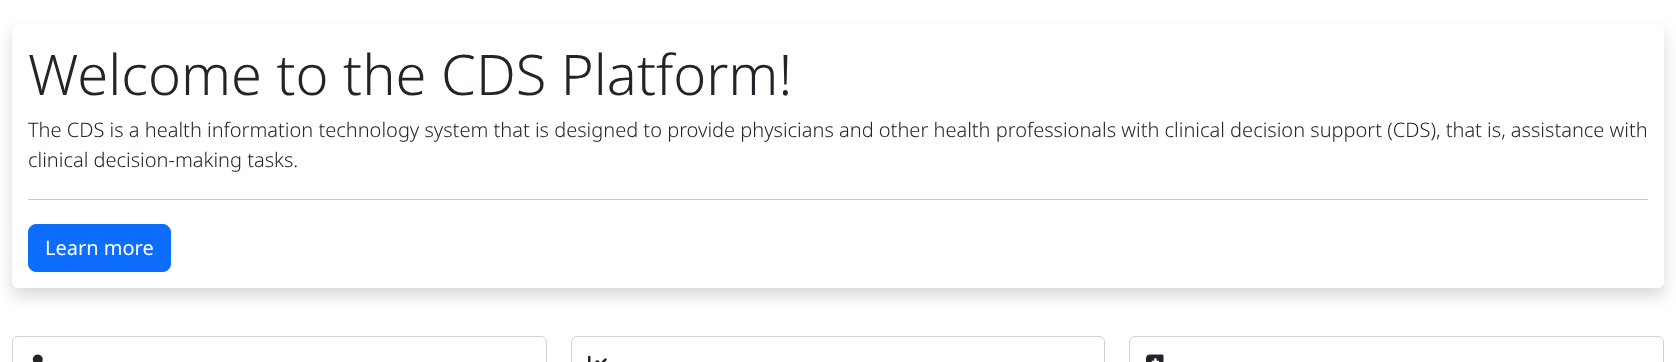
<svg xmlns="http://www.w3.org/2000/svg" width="1676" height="362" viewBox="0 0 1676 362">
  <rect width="100%" height="100%" fill="#fff"/>
  <rect x="12" y="32" width="1652" height="264" rx="6" fill="#00000026" filter="blur(8px)"/>
  <rect x="12" y="24" width="1652" height="264" rx="6" fill="#fff"/>
  <path d="M28 199h1620v1H28z" fill="#c8c9ca"/>
  <rect x="28.5" y="224.5" width="142" height="47" rx="7.5" fill="#0d6efd" stroke="#0d6efd"/>
  <rect x="12.5" y="336.5" width="534" height="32" rx="5.5" fill="none" stroke="#d2d2d2"/>
  <image x="32" y="354" width="11" height="8" href="img/1.png"/>
  <rect x="571.5" y="336.5" width="533" height="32" rx="5.5" fill="none" stroke="#d2d2d2"/>
  <image x="588" y="355" width="19" height="7" href="img/2.png"/>
  <rect x="1129.5" y="336.5" width="534" height="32" rx="5.5" fill="none" stroke="#d2d2d2"/>
  <image x="1146" y="354" width="18" height="8" href="img/3.png"/>
  <text x="28" y="95" font-family="Noto Sans" font-size="56" font-weight="300" fill="#212529">Welcome to the CDS Platform!</text>
  <g font-family="Noto Sans" font-size="20" font-weight="300" fill="#212529">
    <text x="28" y="137">The CDS is a health information technology system that is designed to provide physicians and other health professionals with clinical decision support (CDS), that is, assistance with</text>
    <text x="28" y="167">clinical decision-making tasks.</text>
  </g>
  <text x="45" y="255" font-family="Noto Sans" font-size="20" fill="#fff">Learn more</text>
</svg>
